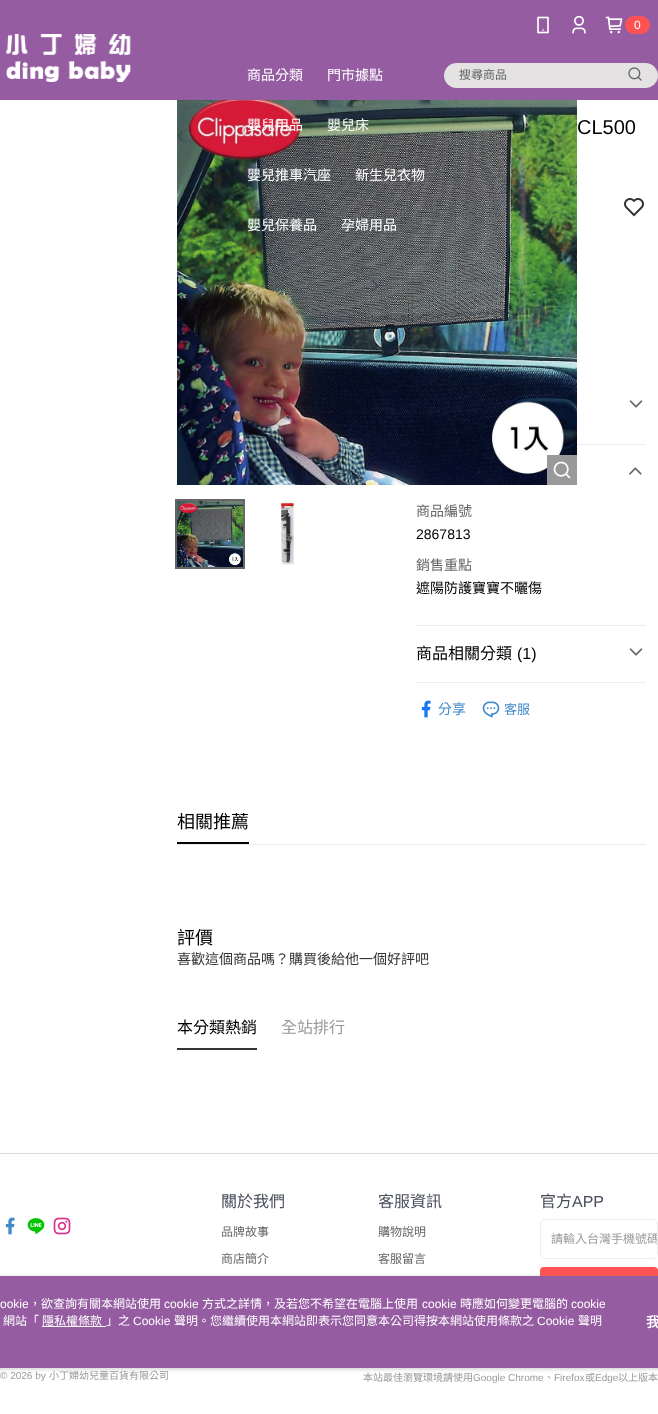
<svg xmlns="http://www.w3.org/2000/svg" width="658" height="1414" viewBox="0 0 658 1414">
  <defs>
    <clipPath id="clip1"><path d="M551 1229h106v17H551z"/></clipPath>
  </defs>
  <rect width="100%" height="100%" fill="#fff"/>
  <path d="M0 0h658v100H0z" fill="#955ca1"/>
  <image x="6" y="34" width="125" height="48" href="img/1.png"/>
  <image x="537" y="16" width="12" height="18" href="img/2.png"/>
  <image x="572" y="15" width="14" height="19" href="img/3.png"/>
  <image x="605" y="16" width="18" height="18" href="img/4.png"/>
  <rect x="625" y="16" width="25" height="18" rx="9" fill="#ff5353"/>
  <rect x="444" y="63" width="214" height="25" rx="12.5" fill="#e4e2e2"/>
  <image x="628" y="67" width="14" height="14" href="img/5.png"/>
  <image x="177" y="100" width="400" height="385" href="img/6.png"/>
  <path d="M547 455h30v30H547z" fill="#999"/>
  <image x="553" y="461" width="18" height="18" href="img/7.png"/>
  <image x="195" y="279" width="8" height="14" href="img/8.png"/>
  <image x="371" y="279" width="8" height="14" href="img/9.png"/>
  <image x="177" y="501" width="66" height="66" href="img/10.png"/>
  <path d="M176 500h68v68H176z" fill="none" stroke="#666" stroke-width="2"/>
  <image x="281" y="503" width="13" height="62" href="img/11.png"/>
  <image x="624" y="198" width="20" height="19" href="img/12.png"/>
  <path d="M577 444h69v1H577z" fill="#eceff1"/>
  <image x="629" y="400" width="14" height="8" href="img/13.png"/>
  <path d="M416 625h230v1H416z" fill="#eceff1"/>
  <image x="628" y="467" width="14" height="8" href="img/14.png"/>
  <path d="M416 682h230v1H416z" fill="#eceff1"/>
  <image x="629" y="648" width="14" height="8" href="img/13.png"/>
  <image x="421" y="700" width="10" height="18" href="img/15.png"/>
  <image x="482" y="701" width="18" height="17" href="img/16.png"/>
  <path d="M177 844h469v1H177z" fill="#ececec"/>
  <path d="M177 842h72v2H177z" fill="#000"/>
  <path d="M177 1048h80v2H177z" fill="#333"/>
  <path d="M0 1153h658v1H0z" fill="#dadada"/>
  <image x="5" y="1217" width="10" height="18" href="img/17.png"/>
  <image x="27" y="1218" width="18" height="16" href="img/18.png"/>
  <image x="53" y="1217" width="18" height="18" href="img/19.png"/>
  <rect x="540.5" y="1219.5" width="117" height="39" rx="4.5" fill="none" stroke="#ededed"/>
  <rect x="540" y="1267" width="118" height="40" rx="4" fill="#ff5353"/>
  <rect x="-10" y="1277" width="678" height="92" rx="4" fill="#97979780" filter="blur(2px)"/>
  <path d="M0 1276h658v92H0z" fill="#955ca1"/>
  <path d="M42 1326h64v1H42z" fill="#fff"/>
  <text x="634" y="29" font-family="Liberation Sans" font-size="12" fill="#fff">0</text>
  <g font-family="Noto Sans CJK TC" font-size="14" fill="#fff">
    <text x="247" y="80">商品分類</text>
    <text x="327" y="80">門市據點</text>
    <text x="247" y="130">嬰兒用品</text>
    <text x="327" y="130">嬰兒床</text>
    <text x="247" y="180">嬰兒推車汽座</text>
    <text x="355" y="180">新生兒衣物</text>
    <text x="247" y="230">嬰兒保養品</text>
    <text x="341" y="230">孕婦用品</text>
  </g>
  <text x="459" y="79" font-family="Noto Sans CJK TC" font-size="12" fill="#666">搜尋商品</text>
  <text x="577" y="134" font-family="Liberation Sans" font-size="20" fill="#000">CL500</text>
  <text x="416" y="516" font-family="Noto Sans CJK TC" font-size="14" fill="#666">商品編號</text>
  <text x="416" y="539" font-family="Liberation Sans" font-size="14" fill="#000">2867813</text>
  <text x="416" y="570" font-family="Noto Sans CJK TC" font-size="14" fill="#666">銷售重點</text>
  <text x="416" y="593" font-family="Noto Sans CJK TC" font-size="14" fill="#000">遮陽防護寶寶不曬傷</text>
  <text x="416" y="659" font-family="Noto Sans CJK TC" font-size="16" fill="#000">商品相關分類</text>
  <text x="517" y="659" font-family="Liberation Sans" font-size="16" fill="#000">(1)</text>
  <text x="438" y="714" font-family="Noto Sans CJK TC" font-size="14" fill="#428bca">分享</text>
  <text x="504" y="714" font-family="Noto Sans CJK TC" font-size="13" fill="#428bca">客服</text>
  <g font-family="Noto Sans CJK TC" font-size="18" fill="#000">
    <text x="177" y="828">相關推薦</text>
    <text x="177" y="944">評價</text>
  </g>
  <text x="177" y="964" font-family="Noto Sans CJK TC" font-size="14" fill="#333">喜歡這個商品嗎？購買後給他一個好評吧</text>
  <text x="177" y="1033" font-family="Noto Sans CJK TC" font-size="16" fill="#000">本分類熱銷</text>
  <text x="281" y="1033" font-family="Noto Sans CJK TC" font-size="16" fill="#999">全站排行</text>
  <text x="221" y="1207" font-family="Noto Sans CJK TC" font-size="16" fill="#4a4e5c">關於我們</text>
  <g font-family="Noto Sans CJK TC" font-size="12" fill="#666">
    <text x="221" y="1236">品牌故事</text>
    <text x="221" y="1263">商店簡介</text>
  </g>
  <text x="378" y="1207" font-family="Noto Sans CJK TC" font-size="16" fill="#4a4e5c">客服資訊</text>
  <g font-family="Noto Sans CJK TC" font-size="12" fill="#666">
    <text x="378" y="1236">購物說明</text>
    <text x="378" y="1263">客服留言</text>
  </g>
  <text x="540" y="1207" font-family="Noto Sans CJK TC" font-size="16" fill="#4a4e5c">官方</text>
  <text x="572" y="1207" font-family="Liberation Sans" font-size="16" fill="#4a4e5c">APP</text>
  <g clip-path="url(#clip1)">
    <text x="551" y="1243" font-family="Noto Sans CJK TC" font-size="12" fill="#999">請輸入台灣手機號碼</text>
  </g>
  <text x="0" y="1379" font-family="Liberation Sans" font-size="10" fill="#999">© 2026 by</text>
  <g font-family="Noto Sans CJK TC" font-size="10" fill="#999">
    <text x="49" y="1379">小丁婦幼兒童百貨有限公司</text>
    <text x="363" y="1381">本站最佳瀏覽環境請使用</text>
  </g>
  <text x="473" y="1381" font-family="Liberation Sans" font-size="10" fill="#999">Google Chrome</text>
  <text x="544" y="1381" font-family="Noto Sans CJK TC" font-size="10" fill="#999">、</text>
  <text x="554" y="1381" font-family="Liberation Sans" font-size="10" fill="#999">Firefox</text>
  <text x="585" y="1381" font-family="Noto Sans CJK TC" font-size="10" fill="#999">或</text>
  <text x="595" y="1381" font-family="Liberation Sans" font-size="10" fill="#999">Edge</text>
  <text x="618" y="1381" font-family="Noto Sans CJK TC" font-size="10" fill="#999">以上版本</text>
  <text x="0" y="1308" font-family="Liberation Sans" font-size="12" fill="#fff">ookie</text>
  <text x="29" y="1308" font-family="Noto Sans CJK TC" font-size="12" fill="#fff">，欲查詢有關本網站使用</text>
  <text x="164" y="1308" font-family="Liberation Sans" font-size="12" fill="#fff">cookie</text>
  <text x="202" y="1308" font-family="Noto Sans CJK TC" font-size="12" fill="#fff">方式之詳情，及若您不希望在電腦上使用</text>
  <text x="422" y="1308" font-family="Liberation Sans" font-size="12" fill="#fff">cookie</text>
  <text x="460" y="1308" font-family="Noto Sans CJK TC" font-size="12" fill="#fff">時應如何變更電腦的</text>
  <text x="571" y="1308" font-family="Liberation Sans" font-size="12" fill="#fff">cookie</text>
  <g font-family="Noto Sans CJK TC" font-size="12" fill="#fff">
    <text x="3" y="1325">網站「</text>
    <text x="42" y="1325">隱私權條款</text>
    <text x="106" y="1325">」之</text>
  </g>
  <text x="133" y="1325" font-family="Liberation Sans" font-size="12" fill="#fff">Cookie</text>
  <text x="174" y="1325" font-family="Noto Sans CJK TC" font-size="12" fill="#fff">聲明。您繼續使用本網站即表示您同意本公司得按本網站使用條款之</text>
  <text x="537" y="1325" font-family="Liberation Sans" font-size="12" fill="#fff">Cookie</text>
  <text x="578" y="1325" font-family="Noto Sans CJK TC" font-size="12" fill="#fff">聲明</text>
  <text x="646" y="1327" font-family="Noto Sans CJK TC" font-size="14" font-weight="bold" fill="#fff">我</text>
</svg>
